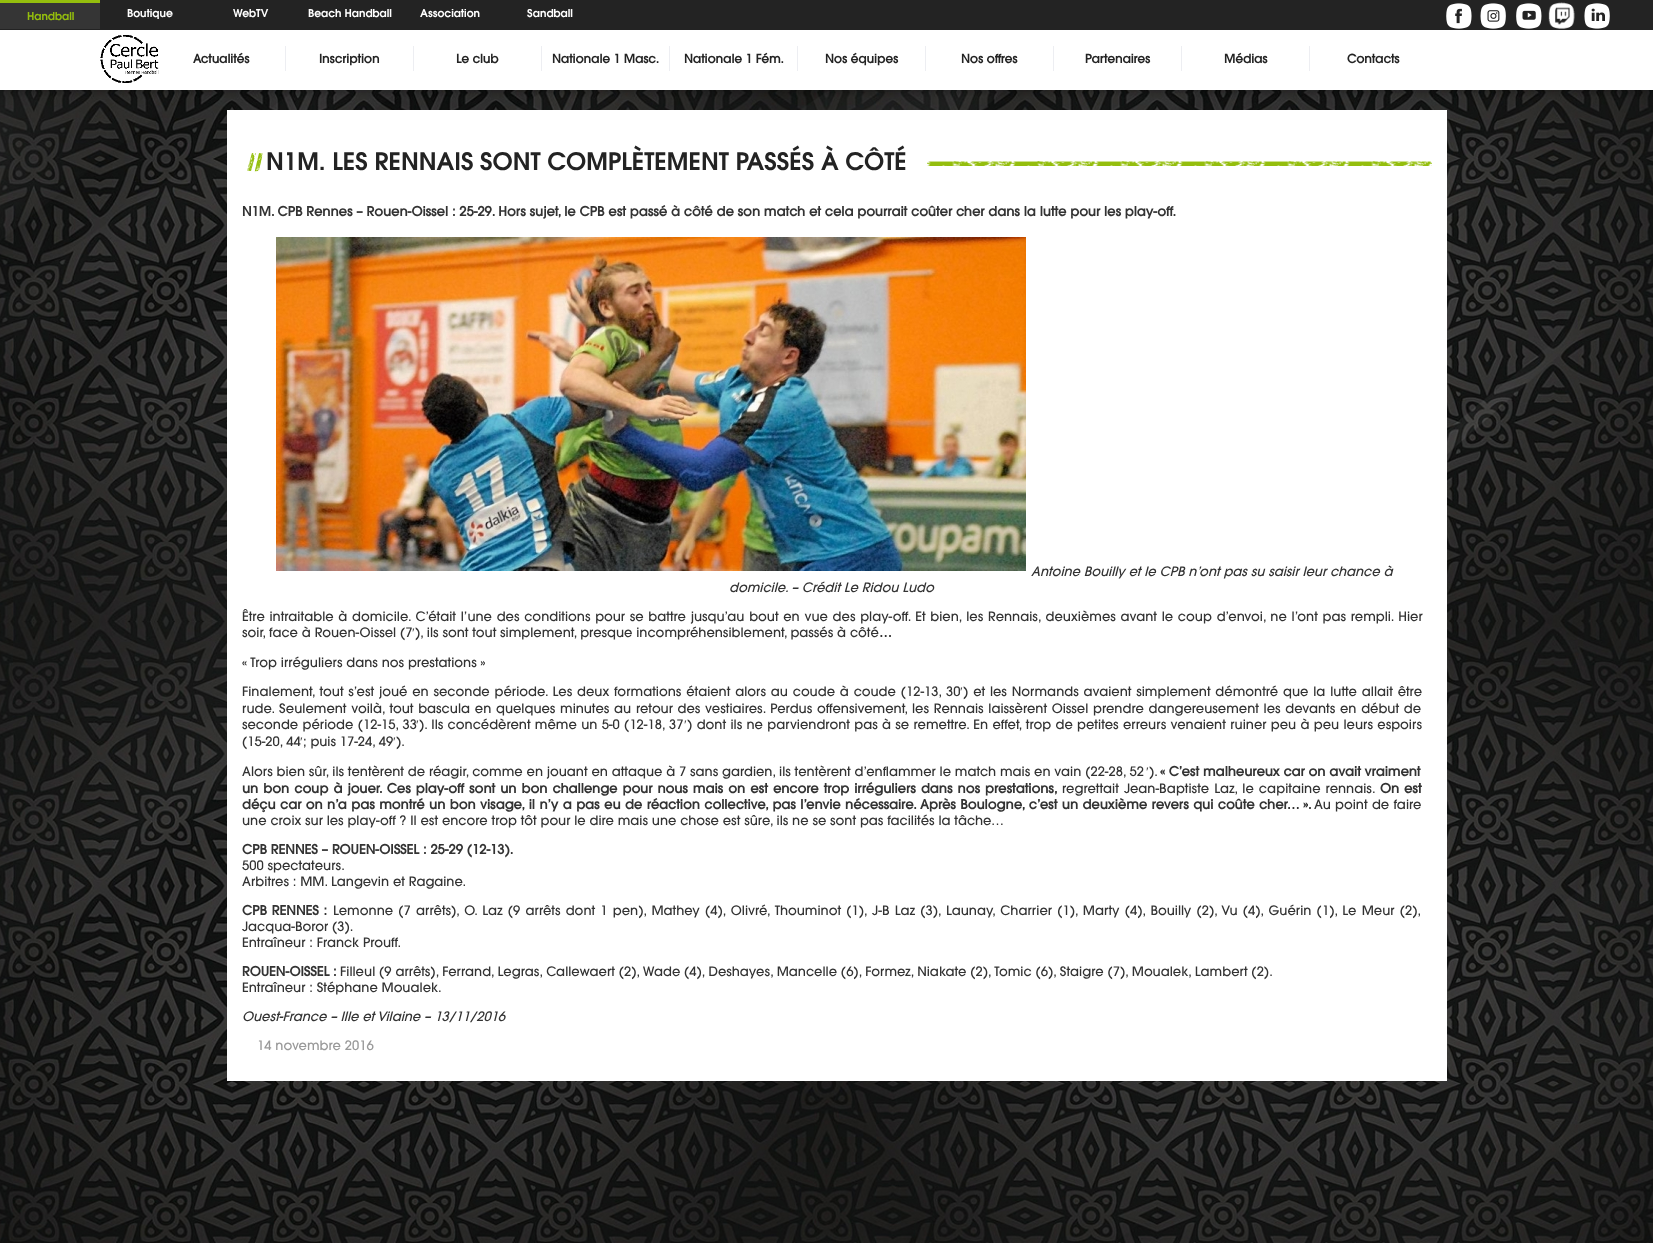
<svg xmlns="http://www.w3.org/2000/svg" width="1653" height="1243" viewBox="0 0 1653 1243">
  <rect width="100%" height="100%" fill="#fff"/>
  <image x="0" y="90" width="1653" height="1153" href="img/1.png"/>
  <path d="M2 6h1649v86H2z" fill="#0000001a" filter="blur(2.5px)"/>
  <path d="M0 1h1653v90H0z" fill="#0000001f" filter="blur(5px)"/>
  <path d="M6 7h1641v78H6z" fill="#0000006b" filter="blur(5px)"/>
  <path d="M0 30h1653v60H0z" fill="#fff"/>
  <path d="M0 0h1653v30H0z" fill="#232323"/>
  <path d="M0 3h100v26H0z" fill="#353535"/>
  <path d="M0 0h100v3H0z" fill="#94be0d"/>
  <image x="1446" y="3" width="26" height="26" href="img/2.png"/>
  <image x="1480" y="3" width="26" height="26" href="img/3.png"/>
  <image x="1516" y="3" width="26" height="26" href="img/4.png"/>
  <image x="1548" y="2" width="27" height="27" href="img/5.png"/>
  <image x="1584" y="3" width="26" height="26" href="img/6.png"/>
  <image x="100" y="35" width="59" height="48" href="img/7.png"/>
  <path d="M285 46h1v25H285z" fill="#edeef2"/>
  <path d="M413 46h1v25H413z" fill="#edeef2"/>
  <path d="M541 46h1v25H541z" fill="#edeef2"/>
  <path d="M669 46h1v25H669z" fill="#edeef2"/>
  <path d="M797 46h1v25H797z" fill="#edeef2"/>
  <path d="M925 46h1v25H925z" fill="#edeef2"/>
  <path d="M1053 46h1v25H1053z" fill="#edeef2"/>
  <path d="M1181 46h1v25H1181z" fill="#edeef2"/>
  <path d="M1309 46h1v25H1309z" fill="#edeef2"/>
  <path d="M227 110h1220v971H227z" fill="#fff"/>
  <image x="927" y="161" width="505" height="5" href="img/8.png"/>
  <image x="276" y="237" width="750" height="334" href="img/9.png"/>
  <text x="27" y="20" font-family="'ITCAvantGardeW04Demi'" font-size="10.75" font-weight="600" fill="#94be0d">Handball</text>
  <g font-family="'ITCAvantGardeW04Demi'" font-size="10.75" font-weight="600" fill="#fff">
    <text x="127" y="17">Boutique</text>
    <text x="233" y="17">WebTV</text>
    <text x="308" y="17">Beach Handball</text>
    <text x="420" y="17">Association</text>
    <text x="527" y="17">Sandball</text>
  </g>
  <g font-family="'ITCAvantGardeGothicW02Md'" font-size="12" font-weight="bold" fill="#232323">
    <text x="193" y="63">Actualités</text>
    <text x="319" y="63">Inscription</text>
    <text x="456" y="63">Le club</text>
    <text x="552" y="63">Nationale 1 Masc.</text>
    <text x="684" y="63">Nationale 1 Fém.</text>
    <text x="825" y="63">Nos équipes</text>
    <text x="961" y="63">Nos offres</text>
    <text x="1085" y="63">Partenaires</text>
    <text x="1224" y="63">Médias</text>
    <text x="1347" y="63">Contacts</text>
  </g>
  <text x="247" y="170" font-family="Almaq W" font-size="24" fill="#94be0d">//</text>
  <text x="266" y="170" font-family="'ITCAvantGardeW04Demi'" font-size="24" font-weight="600" fill="#232323">N1M. LES RENNAIS SONT COMPLÈTEMENT PASSÉS À CÔTÉ</text>
  <text x="242" y="216" font-family="'ITCAvantGardeGothicW02Md'" font-size="13" font-weight="bold" fill="#333">N1M. CPB Rennes – Rouen-Oissel : 25-29. Hors sujet, le CPB est passé à côté de son match et cela pourrait coûter cher dans la lutte pour les play-off.</text>
  <g font-family="'ITCAvantGardeGothicW02Md'" font-size="13" font-weight="500" font-style="italic" fill="#333">
    <text x="1031" y="576">Antoine Bouilly et le CPB n’ont pas su saisir leur chance à</text>
    <text x="729" y="592">domicile. – Crédit Le Ridou Ludo</text>
  </g>
  <g font-family="'ITCAvantGardeGothicW02Md'" font-size="13" font-weight="500" fill="#333">
    <text x="242" y="621" word-spacing="0.9">Être intraitable à domicile. C’était l’une des conditions pour se battre jusqu’au bout en vue des play-off. Et bien, les Rennais, deuxièmes avant le coup d’envoi, ne l’ont pas rempli. Hier</text>
    <text x="242" y="637">soir, face à Rouen-Oissel (7</text>
  </g>
  <text x="412" y="637" font-family="Liberation Serif" font-size="13" fill="#333">′</text>
  <text x="415" y="637" font-family="'ITCAvantGardeGothicW02Md'" font-size="13" font-weight="500" fill="#333">), ils sont tout simplement, presque incompréhensiblement, passés à côté</text>
  <text x="879" y="637" font-family="'ITCAvantGardeGothicW02Md'" font-size="13" font-weight="bold" fill="#333">…</text>
  <g font-family="'ITCAvantGardeGothicW02Md'" font-size="13" font-weight="500" fill="#333">
    <text x="242" y="667">« Trop irréguliers dans nos prestations »</text>
    <text x="242" y="696" word-spacing="1">Finalement, tout s’est joué en seconde période. Les deux formations étaient alors au coude à coude (12-13, 30</text>
  </g>
  <text x="960" y="696" font-family="Liberation Serif" font-size="13" fill="#333">′</text>
  <g font-family="'ITCAvantGardeGothicW02Md'" font-size="13" font-weight="500" fill="#333">
    <text x="963" y="696" word-spacing="1">) et les Normands avaient simplement démontré que la lutte allait être</text>
    <text x="242" y="713" word-spacing="0.9">rude. Seulement voilà, tout bascula en quelques minutes au retour des vestiaires. Perdus offensivement, les Rennais laissèrent Oissel prendre dangereusement les devants en début de</text>
    <text x="242" y="729" word-spacing="0.5">seconde période (12-15, 33</text>
  </g>
  <text x="416" y="729" font-family="Liberation Serif" font-size="13" fill="#333">′</text>
  <text x="419" y="729" word-spacing="0.5" font-family="'ITCAvantGardeGothicW02Md'" font-size="13" font-weight="500" fill="#333">). Ils concédèrent même un 5-0 (12-18, 37</text>
  <text x="684" y="729" font-family="Liberation Serif" font-size="13" fill="#333">′</text>
  <g font-family="'ITCAvantGardeGothicW02Md'" font-size="13" font-weight="500" fill="#333">
    <text x="687" y="729" word-spacing="0.5">) dont ils ne parviendront pas à se remettre. En effet, trop de petites erreurs venaient ruiner peu à peu leurs espoirs</text>
    <text x="242" y="746">(15-20, 44</text>
  </g>
  <text x="300" y="746" font-family="Liberation Serif" font-size="13" fill="#333">′</text>
  <text x="303" y="746" font-family="'ITCAvantGardeGothicW02Md'" font-size="13" font-weight="500" fill="#333">; puis 17-24, 49</text>
  <text x="393" y="746" font-family="Liberation Serif" font-size="13" fill="#333">′</text>
  <g font-family="'ITCAvantGardeGothicW02Md'" font-size="13" font-weight="500" fill="#333">
    <text x="396" y="746">).</text>
    <text x="242" y="776">Alors bien sûr, ils tentèrent de réagir, comme en jouant en attaque à 7 sans gardien, ils tentèrent d’enflammer le match mais en vain (22-28, 52</text>
  </g>
  <text x="1146" y="776" font-family="Liberation Serif" font-size="13" fill="#333">′</text>
  <text x="1149" y="776" font-family="'ITCAvantGardeGothicW02Md'" font-size="13" font-weight="500" fill="#333">).</text>
  <g font-family="'ITCAvantGardeGothicW02Md'" font-size="13" font-weight="bold" fill="#333">
    <text x="1160" y="776">« C’est malheureux car on avait vraiment</text>
    <text x="242" y="793" word-spacing="1.25">un bon coup à jouer. Ces play-off sont un bon challenge pour nous mais on est encore trop irréguliers dans nos prestations,</text>
  </g>
  <text x="1062" y="793" word-spacing="1.25" font-family="'ITCAvantGardeGothicW02Md'" font-size="13" font-weight="500" fill="#333">regrettait Jean-Baptiste Laz, le capitaine rennais.</text>
  <g font-family="'ITCAvantGardeGothicW02Md'" font-size="13" font-weight="bold" fill="#333">
    <text x="1380" y="793" word-spacing="1">On est</text>
    <text x="242" y="809" word-spacing="0.6">déçu car on n’a pas montré un bon visage, il n’y a pas eu de réaction collective, pas l’envie nécessaire. Après Boulogne, c’est un deuxième revers qui coûte cher… ».</text>
  </g>
  <g font-family="'ITCAvantGardeGothicW02Md'" font-size="13" font-weight="500" fill="#333">
    <text x="1314" y="809" word-spacing="0.5">Au point de faire</text>
    <text x="242" y="825">une croix sur les play-off ? Il est encore trop tôt pour le dire mais une chose est sûre, ils ne se sont pas facilités la tâche…</text>
  </g>
  <text x="242" y="854" font-family="'ITCAvantGardeGothicW02Md'" font-size="13" font-weight="bold" fill="#333">CPB RENNES – ROUEN-OISSEL : 25-29 (12-13).</text>
  <g font-family="'ITCAvantGardeGothicW02Md'" font-size="13" font-weight="500" fill="#333">
    <text x="242" y="870">500 spectateurs.</text>
    <text x="242" y="886">Arbitres : MM. Langevin et Ragaine.</text>
  </g>
  <text x="242" y="915" word-spacing="1" font-family="'ITCAvantGardeGothicW02Md'" font-size="13" font-weight="bold" fill="#333">CPB RENNES :</text>
  <g font-family="'ITCAvantGardeGothicW02Md'" font-size="13" font-weight="500" fill="#333">
    <text x="333" y="915" word-spacing="1.4">Lemonne (7 arrêts), O. Laz (9 arrêts dont 1 pen), Mathey (4), Olivré, Thouminot (1), J-B Laz (3), Launay, Charrier (1), Marty (4), Bouilly (2), Vu (4), Guérin (1), Le Meur (2),</text>
    <text x="242" y="931">Jacqua-Boror (3).</text>
    <text x="242" y="947">Entraîneur : Franck Prouff.</text>
  </g>
  <text x="242" y="976" font-family="'ITCAvantGardeGothicW02Md'" font-size="13" font-weight="bold" fill="#333">ROUEN-OISSEL :</text>
  <g font-family="'ITCAvantGardeGothicW02Md'" font-size="13" font-weight="500" fill="#333">
    <text x="340" y="976">Filleul (9 arrêts), Ferrand, Legras, Callewaert (2), Wade (4), Deshayes, Mancelle (6), Formez, Niakate (2), Tomic (6), Staigre (7), Moualek, Lambert (2).</text>
    <text x="242" y="992">Entraîneur : Stéphane Moualek.</text>
  </g>
  <text x="242" y="1021" font-family="'ITCAvantGardeGothicW02Md'" font-size="13" font-weight="500" font-style="italic" fill="#333">Ouest-France – Ille et Vilaine – 13/11/2016</text>
  <text x="257" y="1050" font-family="'ITCAvantGardeGothicW02Md'" font-size="13" font-weight="500" fill="#999">14 novembre 2016</text>
</svg>
